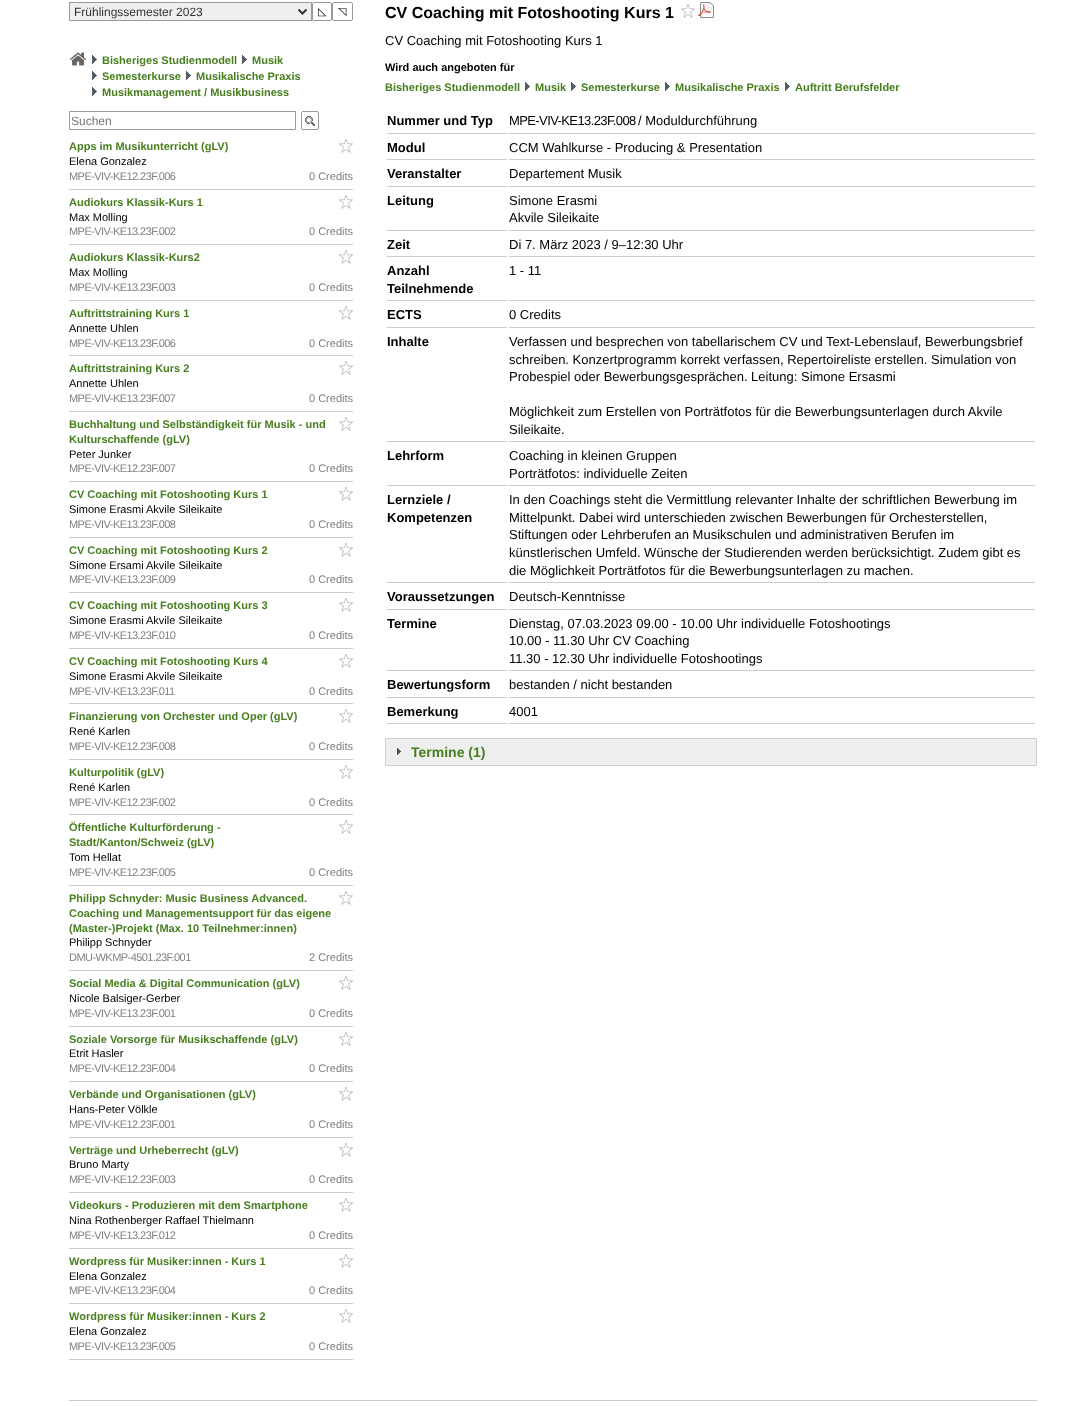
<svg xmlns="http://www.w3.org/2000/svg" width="1071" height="1406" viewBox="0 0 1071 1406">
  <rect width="100%" height="100%" fill="#fff"/>
  <path d="M69.5 2.5h242v18H69.5z" fill="#efefef" stroke="#999"/>
  <path d="M298.5 9.5L302.5 13.5L306.5 9.5" fill="none" stroke="#333" stroke-width="2"/>
  <rect x="312.5" y="2.5" width="19" height="18" rx="1.5" fill="none" stroke="#999"/>
  <rect x="332.5" y="2.5" width="20" height="18" rx="1.5" fill="none" stroke="#999"/>
  <image x="70" y="52" width="16" height="14" href="img/1.png"/>
  <image x="92" y="55" width="5" height="9" href="img/2.png"/>
  <image x="242" y="55" width="5" height="9" href="img/2.png"/>
  <image x="92" y="71" width="5" height="9" href="img/2.png"/>
  <image x="186" y="71" width="5" height="9" href="img/2.png"/>
  <image x="92" y="87" width="5" height="9" href="img/2.png"/>
  <path d="M69.5 111.5h226v18H69.5z" fill="none" stroke="#999"/>
  <image x="305" y="116" width="10" height="10" href="img/3.png"/>
  <rect x="301.5" y="111.5" width="17" height="18" rx="1.5" fill="none" stroke="#999"/>
  <path d="M69 189h284v1H69z" fill="#ccc"/>
  <image x="339" y="139" width="14" height="14" href="img/4.png"/>
  <path d="M69 244h284v1H69z" fill="#ccc"/>
  <image x="339" y="195" width="14" height="14" href="img/4.png"/>
  <path d="M69 300h284v1H69z" fill="#ccc"/>
  <image x="339" y="250" width="14" height="14" href="img/4.png"/>
  <path d="M69 355h284v1H69z" fill="#ccc"/>
  <image x="339" y="306" width="14" height="14" href="img/4.png"/>
  <path d="M69 411h284v1H69z" fill="#ccc"/>
  <image x="339" y="361" width="14" height="14" href="img/4.png"/>
  <path d="M69 481h284v1H69z" fill="#ccc"/>
  <image x="339" y="417" width="14" height="14" href="img/4.png"/>
  <path d="M69 537h284v1H69z" fill="#ccc"/>
  <image x="339" y="487" width="14" height="14" href="img/4.png"/>
  <path d="M69 592h284v1H69z" fill="#ccc"/>
  <image x="339" y="543" width="14" height="14" href="img/4.png"/>
  <path d="M69 648h284v1H69z" fill="#ccc"/>
  <image x="339" y="598" width="14" height="14" href="img/4.png"/>
  <path d="M69 703h284v1H69z" fill="#ccc"/>
  <image x="339" y="654" width="14" height="14" href="img/4.png"/>
  <path d="M69 759h284v1H69z" fill="#ccc"/>
  <image x="339" y="709" width="14" height="14" href="img/4.png"/>
  <path d="M69 814h284v1H69z" fill="#ccc"/>
  <image x="339" y="765" width="14" height="14" href="img/4.png"/>
  <path d="M69 885h284v1H69z" fill="#ccc"/>
  <image x="339" y="820" width="14" height="14" href="img/4.png"/>
  <path d="M69 970h284v1H69z" fill="#ccc"/>
  <image x="339" y="891" width="14" height="14" href="img/4.png"/>
  <path d="M69 1026h284v1H69z" fill="#ccc"/>
  <image x="339" y="976" width="14" height="14" href="img/4.png"/>
  <path d="M69 1081h284v1H69z" fill="#ccc"/>
  <image x="339" y="1032" width="14" height="14" href="img/4.png"/>
  <path d="M69 1137h284v1H69z" fill="#ccc"/>
  <image x="339" y="1087" width="14" height="14" href="img/4.png"/>
  <path d="M69 1192h284v1H69z" fill="#ccc"/>
  <image x="339" y="1143" width="14" height="14" href="img/4.png"/>
  <path d="M69 1248h284v1H69z" fill="#ccc"/>
  <image x="339" y="1198" width="14" height="14" href="img/4.png"/>
  <path d="M69 1303h284v1H69z" fill="#ccc"/>
  <image x="339" y="1254" width="14" height="14" href="img/4.png"/>
  <path d="M69 1359h284v1H69z" fill="#ccc"/>
  <image x="339" y="1309" width="14" height="14" href="img/4.png"/>
  <image x="681" y="4" width="14" height="14" href="img/4.png"/>
  <image x="698" y="2" width="16" height="16" href="img/5.png"/>
  <image x="525" y="82" width="5" height="9" href="img/2.png"/>
  <image x="571" y="82" width="5" height="9" href="img/2.png"/>
  <image x="665" y="82" width="5" height="9" href="img/2.png"/>
  <image x="785" y="82" width="5" height="9" href="img/2.png"/>
  <path d="M387 133h120v1H387z" fill="#ccc"/>
  <path d="M509 133h526v1H509z" fill="#ccc"/>
  <path d="M387 159h120v1H387z" fill="#ccc"/>
  <path d="M509 159h526v1H509z" fill="#ccc"/>
  <path d="M387 186h120v1H387z" fill="#ccc"/>
  <path d="M509 186h526v1H509z" fill="#ccc"/>
  <path d="M387 230h120v1H387z" fill="#ccc"/>
  <path d="M509 230h526v1H509z" fill="#ccc"/>
  <path d="M387 256h120v1H387z" fill="#ccc"/>
  <path d="M509 256h526v1H509z" fill="#ccc"/>
  <path d="M387 300h120v1H387z" fill="#ccc"/>
  <path d="M509 300h526v1H509z" fill="#ccc"/>
  <path d="M387 327h120v1H387z" fill="#ccc"/>
  <path d="M509 327h526v1H509z" fill="#ccc"/>
  <path d="M387 441h120v1H387z" fill="#ccc"/>
  <path d="M509 441h526v1H509z" fill="#ccc"/>
  <path d="M387 485h120v1H387z" fill="#ccc"/>
  <path d="M509 485h526v1H509z" fill="#ccc"/>
  <path d="M387 582h120v1H387z" fill="#ccc"/>
  <path d="M509 582h526v1H509z" fill="#ccc"/>
  <path d="M387 609h120v1H387z" fill="#ccc"/>
  <path d="M509 609h526v1H509z" fill="#ccc"/>
  <path d="M387 670h120v1H387z" fill="#ccc"/>
  <path d="M509 670h526v1H509z" fill="#ccc"/>
  <path d="M387 697h120v1H387z" fill="#ccc"/>
  <path d="M509 697h526v1H509z" fill="#ccc"/>
  <path d="M387 723h120v1H387z" fill="#ccc"/>
  <path d="M509 723h526v1H509z" fill="#ccc"/>
  <path d="M386 739h650v26H386z" fill="#eee"/>
  <image x="397" y="748" width="4" height="7" href="img/6.png"/>
  <path d="M385.5 738.5h651v27H385.5z" fill="none" stroke="#ccc"/>
  <path d="M69 1400h968v1H69z" fill="#ccc"/>
  <text x="74" y="16" font-family="Liberation Sans" font-size="12" fill="#333">Frühlingssemester 2023</text>
  <g font-family="DejaVu Sans" font-size="11" fill="#000">
    <text x="318" y="15">◺</text>
    <text x="338" y="15">◹</text>
  </g>
  <g font-family="Liberation Sans" font-size="11" font-weight="bold" fill="#477e1e">
    <text x="102" y="64">Bisheriges Studienmodell</text>
    <text x="252" y="64">Musik</text>
    <text x="102" y="80">Semesterkurse</text>
    <text x="196" y="80">Musikalische Praxis</text>
    <text x="102" y="96">Musikmanagement / Musikbusiness</text>
  </g>
  <text x="71" y="125" font-family="Liberation Sans" font-size="12" fill="#757575">Suchen</text>
  <text x="69" y="150" font-family="Liberation Sans" font-size="11" font-weight="bold" fill="#477e1e">Apps im Musikunterricht (gLV)</text>
  <text x="69" y="165" font-family="Liberation Sans" font-size="11" fill="#000">Elena Gonzalez</text>
  <text x="69" y="180" font-family="Liberation Sans" font-size="11" letter-spacing="-0.55" fill="#808080">MPE-VIV-KE12.23F.006</text>
  <text x="309" y="180" font-family="Liberation Sans" font-size="11" fill="#808080">0 Credits</text>
  <text x="69" y="206" font-family="Liberation Sans" font-size="11" font-weight="bold" fill="#477e1e">Audiokurs Klassik-Kurs 1</text>
  <text x="69" y="221" font-family="Liberation Sans" font-size="11" fill="#000">Max Molling</text>
  <text x="69" y="235" font-family="Liberation Sans" font-size="11" letter-spacing="-0.55" fill="#808080">MPE-VIV-KE13.23F.002</text>
  <text x="309" y="235" font-family="Liberation Sans" font-size="11" fill="#808080">0 Credits</text>
  <text x="69" y="261" font-family="Liberation Sans" font-size="11" font-weight="bold" fill="#477e1e">Audiokurs Klassik-Kurs2</text>
  <text x="69" y="276" font-family="Liberation Sans" font-size="11" fill="#000">Max Molling</text>
  <text x="69" y="291" font-family="Liberation Sans" font-size="11" letter-spacing="-0.55" fill="#808080">MPE-VIV-KE13.23F.003</text>
  <text x="309" y="291" font-family="Liberation Sans" font-size="11" fill="#808080">0 Credits</text>
  <text x="69" y="317" font-family="Liberation Sans" font-size="11" font-weight="bold" fill="#477e1e">Auftrittstraining Kurs 1</text>
  <text x="69" y="332" font-family="Liberation Sans" font-size="11" fill="#000">Annette Uhlen</text>
  <text x="69" y="347" font-family="Liberation Sans" font-size="11" letter-spacing="-0.55" fill="#808080">MPE-VIV-KE13.23F.006</text>
  <text x="309" y="347" font-family="Liberation Sans" font-size="11" fill="#808080">0 Credits</text>
  <text x="69" y="372" font-family="Liberation Sans" font-size="11" font-weight="bold" fill="#477e1e">Auftrittstraining Kurs 2</text>
  <text x="69" y="387" font-family="Liberation Sans" font-size="11" fill="#000">Annette Uhlen</text>
  <text x="69" y="402" font-family="Liberation Sans" font-size="11" letter-spacing="-0.55" fill="#808080">MPE-VIV-KE13.23F.007</text>
  <text x="309" y="402" font-family="Liberation Sans" font-size="11" fill="#808080">0 Credits</text>
  <g font-family="Liberation Sans" font-size="11" font-weight="bold" fill="#477e1e">
    <text x="69" y="428">Buchhaltung und Selbständigkeit für Musik - und</text>
    <text x="69" y="443">Kulturschaffende (gLV)</text>
  </g>
  <text x="69" y="458" font-family="Liberation Sans" font-size="11" fill="#000">Peter Junker</text>
  <text x="69" y="472" font-family="Liberation Sans" font-size="11" letter-spacing="-0.55" fill="#808080">MPE-VIV-KE12.23F.007</text>
  <text x="309" y="472" font-family="Liberation Sans" font-size="11" fill="#808080">0 Credits</text>
  <text x="69" y="498" font-family="Liberation Sans" font-size="11" font-weight="bold" fill="#477e1e">CV Coaching mit Fotoshooting Kurs 1</text>
  <text x="69" y="513" font-family="Liberation Sans" font-size="11" fill="#000">Simone Erasmi Akvile Sileikaite</text>
  <text x="69" y="528" font-family="Liberation Sans" font-size="11" letter-spacing="-0.55" fill="#808080">MPE-VIV-KE13.23F.008</text>
  <text x="309" y="528" font-family="Liberation Sans" font-size="11" fill="#808080">0 Credits</text>
  <text x="69" y="554" font-family="Liberation Sans" font-size="11" font-weight="bold" fill="#477e1e">CV Coaching mit Fotoshooting Kurs 2</text>
  <text x="69" y="569" font-family="Liberation Sans" font-size="11" fill="#000">Simone Ersami Akvile Sileikaite</text>
  <text x="69" y="583" font-family="Liberation Sans" font-size="11" letter-spacing="-0.55" fill="#808080">MPE-VIV-KE13.23F.009</text>
  <text x="309" y="583" font-family="Liberation Sans" font-size="11" fill="#808080">0 Credits</text>
  <text x="69" y="609" font-family="Liberation Sans" font-size="11" font-weight="bold" fill="#477e1e">CV Coaching mit Fotoshooting Kurs 3</text>
  <text x="69" y="624" font-family="Liberation Sans" font-size="11" fill="#000">Simone Erasmi Akvile Sileikaite</text>
  <text x="69" y="639" font-family="Liberation Sans" font-size="11" letter-spacing="-0.55" fill="#808080">MPE-VIV-KE13.23F.010</text>
  <text x="309" y="639" font-family="Liberation Sans" font-size="11" fill="#808080">0 Credits</text>
  <text x="69" y="665" font-family="Liberation Sans" font-size="11" font-weight="bold" fill="#477e1e">CV Coaching mit Fotoshooting Kurs 4</text>
  <text x="69" y="680" font-family="Liberation Sans" font-size="11" fill="#000">Simone Erasmi Akvile Sileikaite</text>
  <text x="69" y="695" font-family="Liberation Sans" font-size="11" letter-spacing="-0.55" fill="#808080">MPE-VIV-KE13.23F.011</text>
  <text x="309" y="695" font-family="Liberation Sans" font-size="11" fill="#808080">0 Credits</text>
  <text x="69" y="720" font-family="Liberation Sans" font-size="11" font-weight="bold" fill="#477e1e">Finanzierung von Orchester und Oper (gLV)</text>
  <text x="69" y="735" font-family="Liberation Sans" font-size="11" fill="#000">René Karlen</text>
  <text x="69" y="750" font-family="Liberation Sans" font-size="11" letter-spacing="-0.55" fill="#808080">MPE-VIV-KE12.23F.008</text>
  <text x="309" y="750" font-family="Liberation Sans" font-size="11" fill="#808080">0 Credits</text>
  <text x="69" y="776" font-family="Liberation Sans" font-size="11" font-weight="bold" fill="#477e1e">Kulturpolitik (gLV)</text>
  <text x="69" y="791" font-family="Liberation Sans" font-size="11" fill="#000">René Karlen</text>
  <text x="69" y="806" font-family="Liberation Sans" font-size="11" letter-spacing="-0.55" fill="#808080">MPE-VIV-KE12.23F.002</text>
  <text x="309" y="806" font-family="Liberation Sans" font-size="11" fill="#808080">0 Credits</text>
  <g font-family="Liberation Sans" font-size="11" font-weight="bold" fill="#477e1e">
    <text x="69" y="831">Öffentliche Kulturförderung -</text>
    <text x="69" y="846">Stadt/Kanton/Schweiz (gLV)</text>
  </g>
  <text x="69" y="861" font-family="Liberation Sans" font-size="11" fill="#000">Tom Hellat</text>
  <text x="69" y="876" font-family="Liberation Sans" font-size="11" letter-spacing="-0.55" fill="#808080">MPE-VIV-KE12.23F.005</text>
  <text x="309" y="876" font-family="Liberation Sans" font-size="11" fill="#808080">0 Credits</text>
  <g font-family="Liberation Sans" font-size="11" font-weight="bold" fill="#477e1e">
    <text x="69" y="902">Philipp Schnyder: Music Business Advanced.</text>
    <text x="69" y="917">Coaching und Managementsupport für das eigene</text>
    <text x="69" y="932">(Master-)Projekt (Max. 10 Teilnehmer:innen)</text>
  </g>
  <text x="69" y="946" font-family="Liberation Sans" font-size="11" fill="#000">Philipp Schnyder</text>
  <text x="69" y="961" font-family="Liberation Sans" font-size="11" letter-spacing="-0.55" fill="#808080">DMU-WKMP-4501.23F.001</text>
  <text x="309" y="961" font-family="Liberation Sans" font-size="11" fill="#808080">2 Credits</text>
  <text x="69" y="987" font-family="Liberation Sans" font-size="11" font-weight="bold" fill="#477e1e">Social Media &amp; Digital Communication (gLV)</text>
  <text x="69" y="1002" font-family="Liberation Sans" font-size="11" fill="#000">Nicole Balsiger-Gerber</text>
  <text x="69" y="1017" font-family="Liberation Sans" font-size="11" letter-spacing="-0.55" fill="#808080">MPE-VIV-KE13.23F.001</text>
  <text x="309" y="1017" font-family="Liberation Sans" font-size="11" fill="#808080">0 Credits</text>
  <text x="69" y="1043" font-family="Liberation Sans" font-size="11" font-weight="bold" fill="#477e1e">Soziale Vorsorge für Musikschaffende (gLV)</text>
  <text x="69" y="1057" font-family="Liberation Sans" font-size="11" fill="#000">Etrit Hasler</text>
  <text x="69" y="1072" font-family="Liberation Sans" font-size="11" letter-spacing="-0.55" fill="#808080">MPE-VIV-KE12.23F.004</text>
  <text x="309" y="1072" font-family="Liberation Sans" font-size="11" fill="#808080">0 Credits</text>
  <text x="69" y="1098" font-family="Liberation Sans" font-size="11" font-weight="bold" fill="#477e1e">Verbände und Organisationen (gLV)</text>
  <text x="69" y="1113" font-family="Liberation Sans" font-size="11" fill="#000">Hans-Peter Völkle</text>
  <text x="69" y="1128" font-family="Liberation Sans" font-size="11" letter-spacing="-0.55" fill="#808080">MPE-VIV-KE12.23F.001</text>
  <text x="309" y="1128" font-family="Liberation Sans" font-size="11" fill="#808080">0 Credits</text>
  <text x="69" y="1154" font-family="Liberation Sans" font-size="11" font-weight="bold" fill="#477e1e">Verträge und Urheberrecht (gLV)</text>
  <text x="69" y="1168" font-family="Liberation Sans" font-size="11" fill="#000">Bruno Marty</text>
  <text x="69" y="1183" font-family="Liberation Sans" font-size="11" letter-spacing="-0.55" fill="#808080">MPE-VIV-KE12.23F.003</text>
  <text x="309" y="1183" font-family="Liberation Sans" font-size="11" fill="#808080">0 Credits</text>
  <text x="69" y="1209" font-family="Liberation Sans" font-size="11" font-weight="bold" fill="#477e1e">Videokurs - Produzieren mit dem Smartphone</text>
  <text x="69" y="1224" font-family="Liberation Sans" font-size="11" fill="#000">Nina Rothenberger Raffael Thielmann</text>
  <text x="69" y="1239" font-family="Liberation Sans" font-size="11" letter-spacing="-0.55" fill="#808080">MPE-VIV-KE13.23F.012</text>
  <text x="309" y="1239" font-family="Liberation Sans" font-size="11" fill="#808080">0 Credits</text>
  <text x="69" y="1265" font-family="Liberation Sans" font-size="11" font-weight="bold" fill="#477e1e">Wordpress für Musiker:innen - Kurs 1</text>
  <text x="69" y="1280" font-family="Liberation Sans" font-size="11" fill="#000">Elena Gonzalez</text>
  <text x="69" y="1294" font-family="Liberation Sans" font-size="11" letter-spacing="-0.55" fill="#808080">MPE-VIV-KE13.23F.004</text>
  <text x="309" y="1294" font-family="Liberation Sans" font-size="11" fill="#808080">0 Credits</text>
  <text x="69" y="1320" font-family="Liberation Sans" font-size="11" font-weight="bold" fill="#477e1e">Wordpress für Musiker:innen - Kurs 2</text>
  <text x="69" y="1335" font-family="Liberation Sans" font-size="11" fill="#000">Elena Gonzalez</text>
  <text x="69" y="1350" font-family="Liberation Sans" font-size="11" letter-spacing="-0.55" fill="#808080">MPE-VIV-KE13.23F.005</text>
  <text x="309" y="1350" font-family="Liberation Sans" font-size="11" fill="#808080">0 Credits</text>
  <text x="385" y="18" font-family="Liberation Sans" font-size="16" font-weight="bold" fill="#000">CV Coaching mit Fotoshooting Kurs 1</text>
  <text x="385" y="45" font-family="Liberation Sans" font-size="13" fill="#000">CV Coaching mit Fotoshooting Kurs 1</text>
  <text x="385" y="71" font-family="Liberation Sans" font-size="11" font-weight="bold" fill="#000">Wird auch angeboten für</text>
  <g font-family="Liberation Sans" font-size="11" font-weight="bold" fill="#477e1e">
    <text x="385" y="91">Bisheriges Studienmodell</text>
    <text x="535" y="91">Musik</text>
    <text x="581" y="91">Semesterkurse</text>
    <text x="675" y="91">Musikalische Praxis</text>
    <text x="795" y="91">Auftritt Berufsfelder</text>
  </g>
  <text x="387" y="125" font-family="Liberation Sans" font-size="13" font-weight="bold" fill="#000">Nummer und Typ</text>
  <text x="509" y="125" font-family="Liberation Sans" font-size="13" letter-spacing="-0.6" fill="#000">MPE-VIV-KE13.23F.008</text>
  <text x="638" y="125" font-family="Liberation Sans" font-size="13" fill="#000">/ Moduldurchführung</text>
  <text x="387" y="152" font-family="Liberation Sans" font-size="13" font-weight="bold" fill="#000">Modul</text>
  <text x="509" y="152" font-family="Liberation Sans" font-size="13" fill="#000">CCM Wahlkurse - Producing &amp; Presentation</text>
  <text x="387" y="178" font-family="Liberation Sans" font-size="13" font-weight="bold" fill="#000">Veranstalter</text>
  <text x="509" y="178" font-family="Liberation Sans" font-size="13" fill="#000">Departement Musik</text>
  <text x="387" y="205" font-family="Liberation Sans" font-size="13" font-weight="bold" fill="#000">Leitung</text>
  <g font-family="Liberation Sans" font-size="13" fill="#000">
    <text x="509" y="205">Simone Erasmi</text>
    <text x="509" y="222">Akvile Sileikaite</text>
  </g>
  <text x="387" y="249" font-family="Liberation Sans" font-size="13" font-weight="bold" fill="#000">Zeit</text>
  <text x="509" y="249" font-family="Liberation Sans" font-size="13" fill="#000">Di 7. März 2023 / 9–12:30 Uhr</text>
  <g font-family="Liberation Sans" font-size="13" font-weight="bold" fill="#000">
    <text x="387" y="275">Anzahl</text>
    <text x="387" y="293">Teilnehmende</text>
  </g>
  <text x="509" y="275" font-family="Liberation Sans" font-size="13" fill="#000">1 - 11</text>
  <text x="387" y="319" font-family="Liberation Sans" font-size="13" font-weight="bold" fill="#000">ECTS</text>
  <text x="509" y="319" font-family="Liberation Sans" font-size="13" fill="#000">0 Credits</text>
  <text x="387" y="346" font-family="Liberation Sans" font-size="13" font-weight="bold" fill="#000">Inhalte</text>
  <g font-family="Liberation Sans" font-size="13" fill="#000">
    <text x="509" y="346">Verfassen und besprechen von tabellarischem CV und Text-Lebenslauf, Bewerbungsbrief</text>
    <text x="509" y="364">schreiben. Konzertprogramm korrekt verfassen, Repertoireliste erstellen. Simulation von</text>
    <text x="509" y="381">Probespiel oder Bewerbungsgesprächen. Leitung: Simone Ersasmi</text>
    <text x="509" y="416">Möglichkeit zum Erstellen von Porträtfotos für die Bewerbungsunterlagen durch Akvile</text>
    <text x="509" y="434">Sileikaite.</text>
  </g>
  <text x="387" y="460" font-family="Liberation Sans" font-size="13" font-weight="bold" fill="#000">Lehrform</text>
  <g font-family="Liberation Sans" font-size="13" fill="#000">
    <text x="509" y="460">Coaching in kleinen Gruppen</text>
    <text x="509" y="478">Porträtfotos: individuelle Zeiten</text>
  </g>
  <g font-family="Liberation Sans" font-size="13" font-weight="bold" fill="#000">
    <text x="387" y="504">Lernziele /</text>
    <text x="387" y="522">Kompetenzen</text>
  </g>
  <g font-family="Liberation Sans" font-size="13" fill="#000">
    <text x="509" y="504">In den Coachings steht die Vermittlung relevanter Inhalte der schriftlichen Bewerbung im</text>
    <text x="509" y="522">Mittelpunkt. Dabei wird unterschieden zwischen Bewerbungen für Orchesterstellen,</text>
    <text x="509" y="539">Stiftungen oder Lehrberufen an Musikschulen und administrativen Berufen im</text>
    <text x="509" y="557">künstlerischen Umfeld. Wünsche der Studierenden werden berücksichtigt. Zudem gibt es</text>
    <text x="509" y="575">die Möglichkeit Porträtfotos für die Bewerbungsunterlagen zu machen.</text>
  </g>
  <text x="387" y="601" font-family="Liberation Sans" font-size="13" font-weight="bold" fill="#000">Voraussetzungen</text>
  <text x="509" y="601" font-family="Liberation Sans" font-size="13" fill="#000">Deutsch-Kenntnisse</text>
  <text x="387" y="628" font-family="Liberation Sans" font-size="13" font-weight="bold" fill="#000">Termine</text>
  <g font-family="Liberation Sans" font-size="13" fill="#000">
    <text x="509" y="628">Dienstag, 07.03.2023 09.00 - 10.00 Uhr individuelle Fotoshootings</text>
    <text x="509" y="645">10.00 - 11.30 Uhr CV Coaching</text>
    <text x="509" y="663">11.30 - 12.30 Uhr individuelle Fotoshootings</text>
  </g>
  <text x="387" y="689" font-family="Liberation Sans" font-size="13" font-weight="bold" fill="#000">Bewertungsform</text>
  <text x="509" y="689" font-family="Liberation Sans" font-size="13" fill="#000">bestanden / nicht bestanden</text>
  <text x="387" y="716" font-family="Liberation Sans" font-size="13" font-weight="bold" fill="#000">Bemerkung</text>
  <text x="509" y="716" font-family="Liberation Sans" font-size="13" fill="#000">4001</text>
  <text x="411" y="757" font-family="Liberation Sans" font-size="14" font-weight="bold" fill="#477e1e">Termine (1)</text>
</svg>
